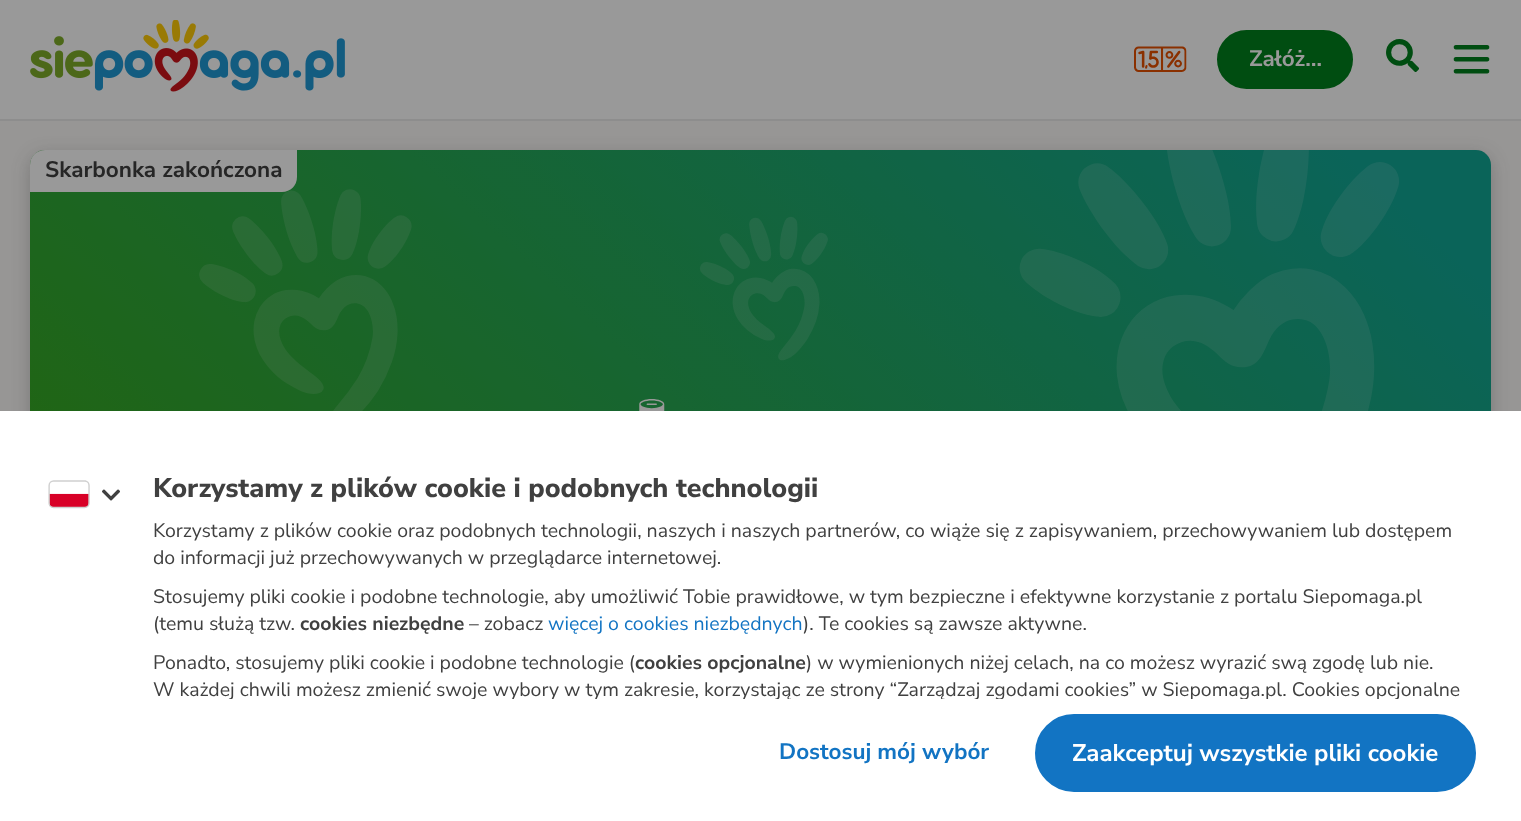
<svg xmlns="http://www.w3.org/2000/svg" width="1521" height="821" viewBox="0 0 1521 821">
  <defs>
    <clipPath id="clip1"><path d="M0 411h1521v288H0z"/></clipPath>
  </defs>
  <rect width="100%" height="100%" fill="#979695"/>
  <path d="M0 0h1521v119H0z" fill="#999"/>
  <path d="M0 119h1521v2H0z" fill="#8d8d8d"/>
  <image x="30" y="20" width="315" height="72" href="img/1.png"/>
  <image x="1134" y="46" width="53" height="26" href="img/2.png"/>
  <rect x="1218" y="31" width="134" height="57" rx="28.5" fill="#004d11" stroke="#004d11" stroke-width="2"/>
  <image x="1386" y="39" width="33" height="33" href="img/3.png"/>
  <image x="1453" y="45" width="37" height="29" href="img/4.png"/>
  <rect x="30" y="155" width="1461" height="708" rx="15" fill="#26262642" filter="blur(9px)"/>
  <image x="30" y="150" width="1461" height="261" href="img/5.png"/>
  <path d="M45 150H297V177C297 185.5 290.5 192 282 192H30V165C30 156.5 36.5 150 45 150Z" fill="#999"/>
  <image x="639" y="399" width="26" height="12" href="img/6.png"/>
  <path d="M0 411h1521v410H0z" fill="#fff"/>
  <image x="48" y="480" width="42" height="29" href="img/7.png"/>
  <image x="102" y="489" width="18" height="12" href="img/8.png"/>
  <rect x="1036" y="715" width="439" height="76" rx="38" fill="#1274c3" stroke="#1274c3" stroke-width="2"/>
  <text x="1249" y="66" font-family="Nunito Sans" font-size="22.5" font-weight="bold" fill="#999">Załóż…</text>
  <text x="45" y="177" font-family="Nunito Sans" font-size="22.5" font-weight="bold" fill="#262626">Skarbonka zakończona</text>
  <text x="153" y="497" font-family="Nunito Sans" font-size="27" font-weight="800" fill="#404040">Korzystamy z plików cookie i podobnych technologii</text>
  <g font-family="Nunito Sans" font-size="19.5" fill="#404040">
    <text x="153" y="537">Korzystamy z plików cookie oraz podobnych technologii, naszych i naszych partnerów, co wiąże się z zapisywaniem, przechowywaniem lub dostępem</text>
    <text x="153" y="564">do informacji już przechowywanych w przeglądarce internetowej.</text>
    <text x="153" y="603">Stosujemy pliki cookie i podobne technologie, aby umożliwić Tobie prawidłowe, w tym bezpieczne i efektywne korzystanie z portalu Siepomaga.pl</text>
    <text x="153" y="630">(temu służą tzw.</text>
  </g>
  <text x="300" y="630" font-family="Nunito Sans" font-size="19.5" font-weight="bold" fill="#404040">cookies niezbędne</text>
  <text x="469" y="630" font-family="Nunito Sans" font-size="19.5" fill="#404040">– zobacz</text>
  <text x="548" y="630" font-family="Nunito Sans" font-size="19.5" fill="#1274c3">więcej o cookies niezbędnych</text>
  <g font-family="Nunito Sans" font-size="19.5" fill="#404040">
    <text x="803" y="630">). Te cookies są zawsze aktywne.</text>
    <text x="153" y="669">Ponadto, stosujemy pliki cookie i podobne technologie (</text>
  </g>
  <text x="635" y="669" font-family="Nunito Sans" font-size="19.5" font-weight="bold" fill="#404040">cookies opcjonalne</text>
  <text x="806" y="669" font-family="Nunito Sans" font-size="19.5" fill="#404040">) w wymienionych niżej celach, na co możesz wyrazić swą zgodę lub nie.</text>
  <g clip-path="url(#clip1)">
    <text x="153" y="696" font-family="Nunito Sans" font-size="19.5" fill="#404040">W każdej chwili możesz zmienić swoje wybory w tym zakresie, korzystając ze strony “Zarządzaj zgodami cookies” w Siepomaga.pl. Cookies opcjonalne</text>
  </g>
  <text x="779" y="759" font-family="Nunito Sans" font-size="22.5" font-weight="bold" fill="#1274c3">Dostosuj mój wybór</text>
  <text x="1072" y="761" font-family="Nunito Sans" font-size="24" font-weight="bold" fill="#fff">Zaakceptuj wszystkie pliki cookie</text>
</svg>
